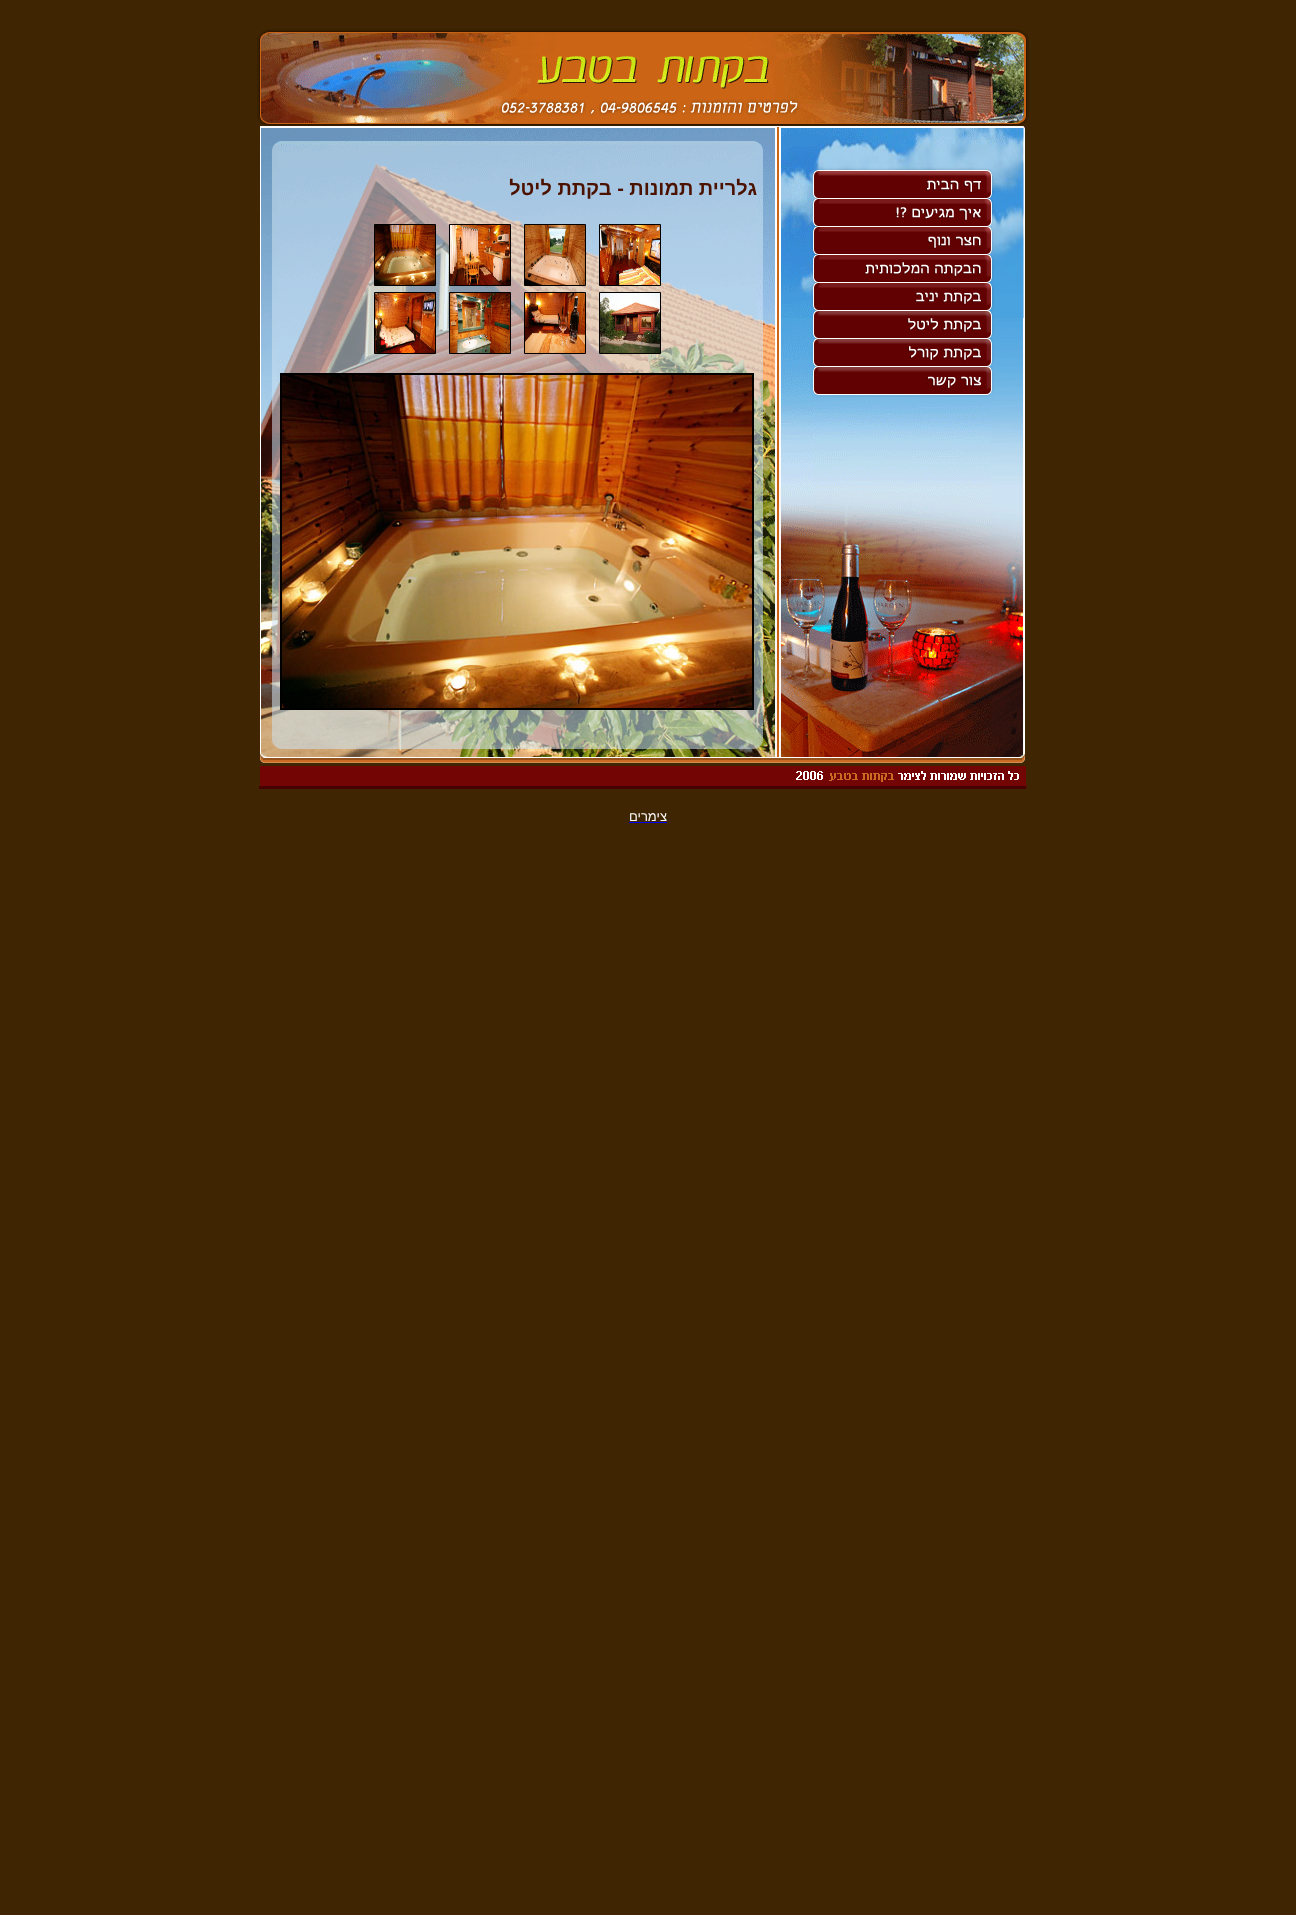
<svg xmlns="http://www.w3.org/2000/svg" width="1296" height="1915" viewBox="0 0 1296 1915">
  <rect width="100%" height="100%" fill="#3f2501"/>
  <image x="257" y="29" width="772" height="116" href="img/1.png"/>
  <image x="814" y="171" width="177" height="27" href="img/2.png"/>
  <image x="991" y="145" width="34" height="600" href="img/3.png"/>
  <image x="814" y="145" width="177" height="26" href="img/4.png"/>
  <image x="757" y="145" width="57" height="600" href="img/5.png"/>
  <image x="277" y="145" width="480" height="600" href="img/6.png"/>
  <path d="M599.5 224.5h61v61H599.5z" fill="none" stroke="#000"/>
  <image x="600" y="225" width="60" height="60" href="img/7.png"/>
  <path d="M524.5 224.5h61v61H524.5z" fill="none" stroke="#000"/>
  <image x="525" y="225" width="60" height="60" href="img/8.png"/>
  <path d="M449.5 224.5h61v61H449.5z" fill="none" stroke="#000"/>
  <image x="450" y="225" width="60" height="60" href="img/9.png"/>
  <path d="M374.5 224.5h61v61H374.5z" fill="none" stroke="#000"/>
  <image x="375" y="225" width="60" height="60" href="img/10.png"/>
  <path d="M599.5 292.5h61v61H599.5z" fill="none" stroke="#000"/>
  <image x="600" y="293" width="60" height="60" href="img/11.png"/>
  <path d="M524.5 292.5h61v61H524.5z" fill="none" stroke="#000"/>
  <image x="525" y="293" width="60" height="60" href="img/12.png"/>
  <path d="M449.5 292.5h61v61H449.5z" fill="none" stroke="#000"/>
  <image x="450" y="293" width="60" height="60" href="img/13.png"/>
  <path d="M374.5 292.5h61v61H374.5z" fill="none" stroke="#000"/>
  <image x="375" y="293" width="60" height="60" href="img/14.png"/>
  <path d="M281 374h472v335H281z" fill="none" stroke="#000" stroke-width="2"/>
  <image x="282" y="375" width="470" height="333" href="img/15.png"/>
  <image x="260" y="145" width="17" height="600" href="img/16.png"/>
  <image x="814" y="198" width="177" height="29" href="img/17.png"/>
  <image x="814" y="227" width="177" height="27" href="img/18.png"/>
  <image x="814" y="254" width="177" height="30" href="img/19.png"/>
  <image x="814" y="284" width="177" height="26" href="img/20.png"/>
  <image x="814" y="310" width="177" height="1" href="img/21.png"/>
  <image x="814" y="311" width="177" height="27" href="img/22.png"/>
  <image x="814" y="338" width="177" height="1" href="img/23.png"/>
  <image x="814" y="339" width="177" height="27" href="img/24.png"/>
  <image x="814" y="366" width="177" height="1" href="img/25.png"/>
  <image x="814" y="367" width="177" height="27" href="img/26.png"/>
  <image x="814" y="394" width="177" height="351" href="img/27.png"/>
  <image x="259" y="745" width="768" height="44" href="img/28.png"/>
  <path d="M629 822h38v1H629z" fill="#00e"/>
  <text x="757" y="195" font-family="Liberation Sans" font-size="20" font-weight="bold" direction="rtl" fill="#4c1200">גלריית תמונות - בקתת ליטל</text>
  <text x="667" y="821" font-family="Liberation Sans" font-size="13" direction="rtl" fill="#fff">צימרים</text>
</svg>
